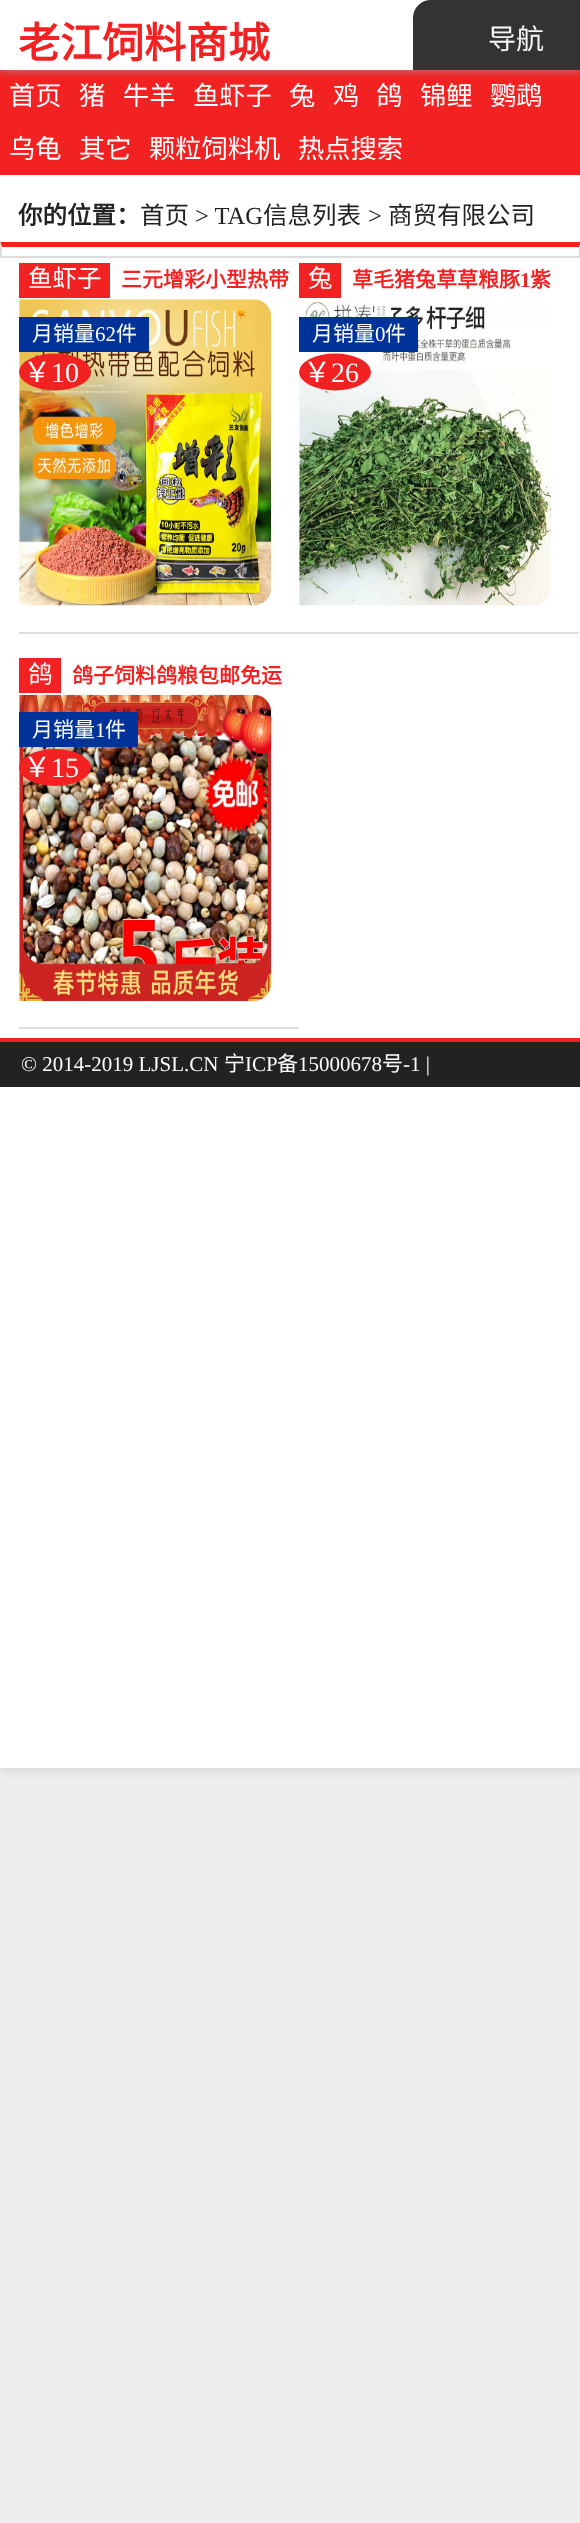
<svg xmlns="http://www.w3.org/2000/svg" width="580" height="2523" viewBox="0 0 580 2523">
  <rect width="100%" height="100%" fill="#eee"/>
  <path d="M0 18h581v1750H0z" fill="#00000026" filter="blur(7px)"/>
  <path d="M0 175h580v1593H0z" fill="#fff"/>
  <path d="M0 70h580v105H0z" fill="#f22222"/>
  <path d="M0 0h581v70H0z" fill="#999" filter="blur(4.5px)"/>
  <path d="M0 0h431v70H0z" fill="#fff"/>
  <path d="M431 1H580V69H414V18C414 8.5 421.5 1 431 1Z" fill="#333" stroke="#333" stroke-width="2"/>
  <path d="M0 242H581L579 247H2Z" fill="#f22222"/>
  <path d="M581 241.5V257L579 255.5V247Z" fill="#ddd"/>
  <path d="M0 256h580v2H0z" fill="#ddd"/>
  <path d="M0 257V241.5L2 247V255.5Z" fill="#ddd"/>
  <path d="M19 632h560v2H19z" fill="#ddd"/>
  <path d="M19 263h91v35H19z" fill="#f22222"/>
  <image x="19" y="299" width="253" height="307" href="img/1.png"/>
  <path d="M19 317h130v35H19z" fill="#039"/>
  <ellipse cx="55" cy="372" rx="36" ry="18.5" fill="#f22222"/>
  <path d="M299 263h42v35H299z" fill="#f22222"/>
  <image x="299" y="302" width="253" height="304" href="img/2.png"/>
  <path d="M299 317h119v35H299z" fill="#039"/>
  <ellipse cx="335" cy="372" rx="36" ry="18.5" fill="#f22222"/>
  <path d="M19 1027h280v2H19z" fill="#ddd"/>
  <path d="M19 658h42v35H19z" fill="#f22222"/>
  <image x="19" y="694" width="253" height="307" href="img/3.png"/>
  <path d="M19 712h119v35H19z" fill="#039"/>
  <ellipse cx="55" cy="767.5" rx="36" ry="18.5" fill="#f22222"/>
  <path d="M0 1042h580v45H0z" fill="#222"/>
  <path d="M0 1038h580v4H0z" fill="#f22222"/>
  <text x="18" y="58" font-family="Noto Sans CJK SC" font-size="42" font-weight="bold" fill="#f22222">老江饲料商城</text>
  <text x="488" y="49" font-family="Noto Sans CJK SC" font-size="28" fill="#f4f5f6">导航</text>
  <g font-family="Noto Sans CJK SC" font-size="26.25" fill="#fff">
    <text x="9" y="105">首页</text>
    <text x="79" y="105">猪</text>
    <text x="123" y="105">牛羊</text>
    <text x="193" y="105">鱼虾子</text>
    <text x="289" y="105">兔</text>
    <text x="333" y="105">鸡</text>
    <text x="376" y="105">鸽</text>
    <text x="420" y="105">锦鲤</text>
    <text x="490" y="105">鹦鹉</text>
    <text x="9" y="158">乌龟</text>
    <text x="79" y="158">其它</text>
    <text x="149" y="158">颗粒饲料机</text>
    <text x="298" y="158">热点搜索</text>
  </g>
  <text x="18" y="224" font-family="Noto Sans CJK SC" font-size="24.5" font-weight="bold" fill="#222">你的位置：</text>
  <text x="140" y="224" font-family="Noto Sans CJK SC" font-size="24.5" fill="#222">首页</text>
  <text x="195" y="224" font-family="Liberation Serif" font-size="24.5" fill="#222">&gt; TAG</text>
  <text x="263" y="224" font-family="Noto Sans CJK SC" font-size="24.5" fill="#222">信息列表</text>
  <text x="368" y="224" font-family="Liberation Serif" font-size="24.5" fill="#222">&gt;</text>
  <text x="388" y="224" font-family="Noto Sans CJK SC" font-size="24.5" fill="#222">商贸有限公司</text>
  <text x="28" y="287" font-family="Noto Sans CJK SC" font-size="24.5" fill="#fff">鱼虾子</text>
  <text x="121" y="287" font-family="Noto Sans CJK SC" font-size="21" font-weight="bold" fill="#f22222">三元增彩小型热带</text>
  <text x="32" y="341" font-family="Noto Sans CJK SC" font-size="21" fill="#fff">月销量</text>
  <text x="95" y="341" font-family="Liberation Serif" font-size="21" fill="#fff">62</text>
  <text x="116" y="341" font-family="Noto Sans CJK SC" font-size="21" fill="#fff">件</text>
  <text x="23" y="382" font-family="Noto Sans CJK SC" font-size="28" fill="#fff">￥</text>
  <text x="51" y="382" font-family="Liberation Serif" font-size="28" fill="#fff">10</text>
  <text x="308" y="287" font-family="Noto Sans CJK SC" font-size="24.5" fill="#fff">兔</text>
  <text x="352" y="287" font-family="Noto Sans CJK SC" font-size="21" font-weight="bold" fill="#f22222">草毛猪兔草草粮豚</text>
  <text x="520" y="287" font-family="Liberation Serif" font-size="21" font-weight="bold" fill="#f22222">1</text>
  <text x="530" y="287" font-family="Noto Sans CJK SC" font-size="21" font-weight="bold" fill="#f22222">紫</text>
  <text x="312" y="341" font-family="Noto Sans CJK SC" font-size="21" fill="#fff">月销量</text>
  <text x="375" y="341" font-family="Liberation Serif" font-size="21" fill="#fff">0</text>
  <text x="385" y="341" font-family="Noto Sans CJK SC" font-size="21" fill="#fff">件</text>
  <text x="303" y="382" font-family="Noto Sans CJK SC" font-size="28" fill="#fff">￥</text>
  <text x="331" y="382" font-family="Liberation Serif" font-size="28" fill="#fff">26</text>
  <text x="28" y="683" font-family="Noto Sans CJK SC" font-size="24.5" fill="#fff">鸽</text>
  <text x="72" y="683" font-family="Noto Sans CJK SC" font-size="21" font-weight="bold" fill="#f22222">鸽子饲料鸽粮包邮免运</text>
  <text x="32" y="737" font-family="Noto Sans CJK SC" font-size="21" fill="#fff">月销量</text>
  <text x="95" y="737" font-family="Liberation Serif" font-size="21" fill="#fff">1</text>
  <text x="105" y="737" font-family="Noto Sans CJK SC" font-size="21" fill="#fff">件</text>
  <text x="23" y="777" font-family="Noto Sans CJK SC" font-size="28" fill="#fff">￥</text>
  <text x="51" y="777" font-family="Liberation Serif" font-size="28" fill="#fff">15</text>
  <text x="21" y="1071" font-family="Liberation Serif" font-size="21" fill="#fff">© 2014-2019 LJSL.CN</text>
  <text x="224" y="1071" font-family="Noto Sans CJK SC" font-size="21" fill="#fff">宁</text>
  <text x="245" y="1071" font-family="Liberation Serif" font-size="21" fill="#fff">ICP</text>
  <text x="277" y="1071" font-family="Noto Sans CJK SC" font-size="21" fill="#fff">备</text>
  <text x="298" y="1071" font-family="Liberation Serif" font-size="21" fill="#fff">15000678</text>
  <text x="382" y="1071" font-family="Noto Sans CJK SC" font-size="21" fill="#fff">号</text>
  <text x="403" y="1071" font-family="Liberation Serif" font-size="21" fill="#fff">-1 |</text>
</svg>
